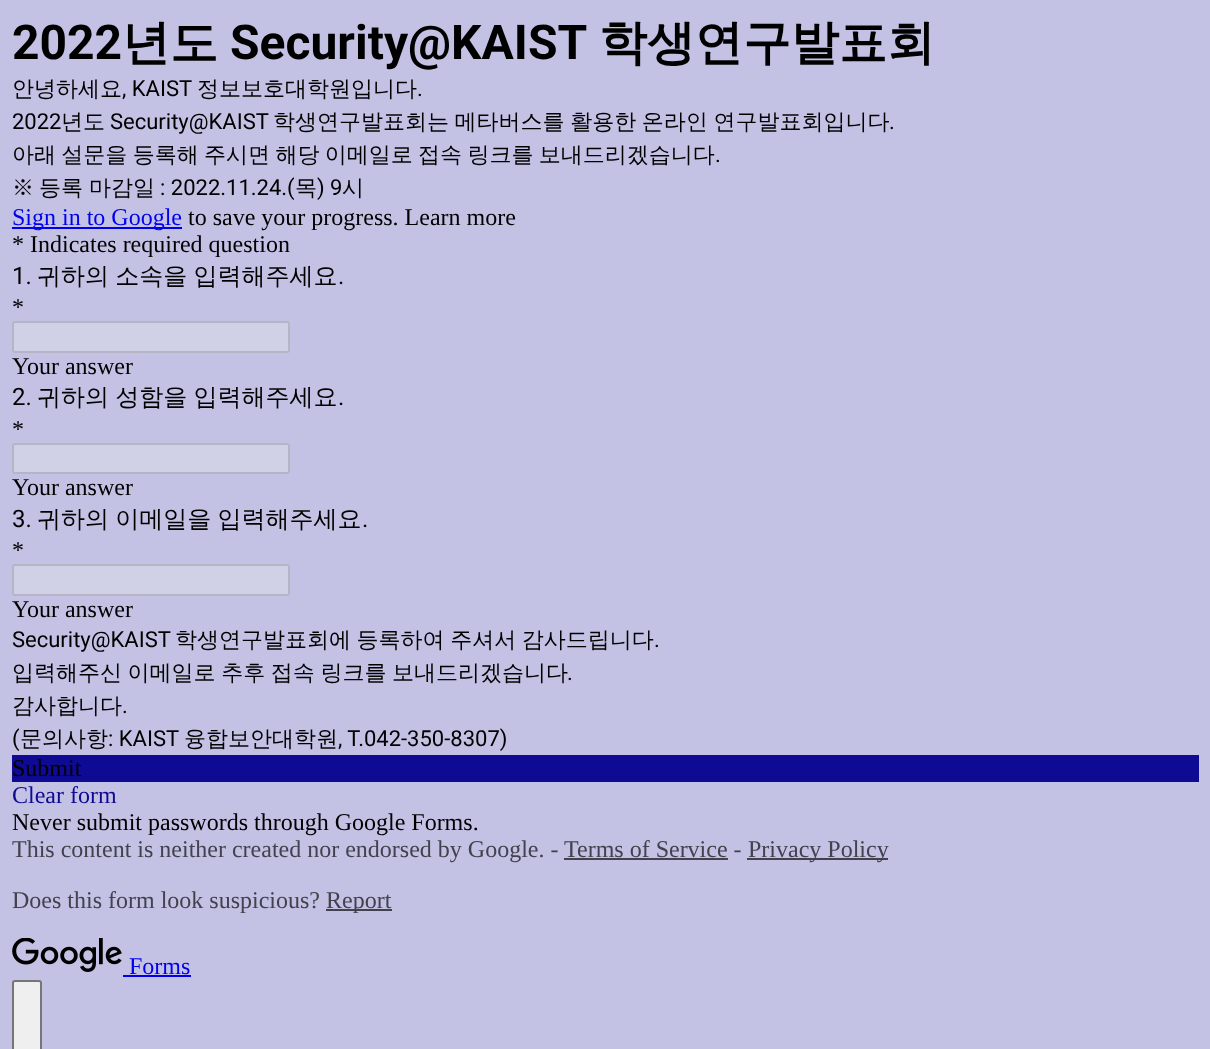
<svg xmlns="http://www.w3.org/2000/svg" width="1210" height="1049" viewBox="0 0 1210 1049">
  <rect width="100%" height="100%" fill="#c3c2e4"/>
  <path d="M12 227h170v2H12z" fill="#00e"/>
  <rect x="12" y="321" width="278" height="32" rx="3" fill="#d0d0e7"/>
  <rect x="13" y="322" width="276" height="30" rx="2" fill="none" stroke="#7676764d" stroke-width="2"/>
  <rect x="12" y="443" width="278" height="31" rx="3" fill="#d0d0e7"/>
  <rect x="13" y="444" width="276" height="29" rx="2" fill="none" stroke="#7676764d" stroke-width="2"/>
  <rect x="12" y="564" width="278" height="32" rx="3" fill="#d0d0e7"/>
  <rect x="13" y="565" width="276" height="30" rx="2" fill="none" stroke="#7676764d" stroke-width="2"/>
  <path d="M12 755h1187v27H12z" fill="#0f0a93"/>
  <path d="M564 858h164v2H564z" fill="#42424e"/>
  <path d="M747 858h141v2H747z" fill="#42424e"/>
  <path d="M326 909h66v2H326z" fill="#42424e"/>
  <image x="12" y="938" width="110" height="34" href="img/1.png"/>
  <path d="M123 975h68v2H123z" fill="#00e"/>
  <rect x="13" y="981" width="28" height="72" rx="2" fill="#efefef" stroke="#767676" stroke-width="2"/>
  <text x="12" y="59" font-family="Roboto" font-size="48" font-weight="bold" fill="#000">2022</text>
  <text x="122" y="59" font-family="WenQuanYi Zen Hei" font-size="48" font-weight="bold" fill="#000">년도</text>
  <text x="230" y="59" font-family="Roboto" font-size="48" font-weight="bold" fill="#000">Security@KAIST</text>
  <text x="599" y="59" font-family="WenQuanYi Zen Hei" font-size="48" font-weight="bold" fill="#000">학생연구발표회</text>
  <text x="12" y="96" font-family="WenQuanYi Zen Hei" font-size="22" font-weight="500" fill="#000">안녕하세요</text>
  <text x="122" y="96" font-family="Roboto" font-size="22" fill="#000">, KAIST</text>
  <text x="197" y="96" font-family="WenQuanYi Zen Hei" font-size="22" font-weight="500" fill="#000">정보보호대학원입니다</text>
  <g font-family="Roboto" font-size="22" fill="#000">
    <text x="417" y="96">.</text>
    <text x="12" y="129">2022</text>
  </g>
  <text x="61" y="129" font-family="WenQuanYi Zen Hei" font-size="22" font-weight="500" fill="#000">년도</text>
  <text x="110" y="129" font-family="Roboto" font-size="22" fill="#000">Security@KAIST</text>
  <text x="273" y="129" word-spacing="-1" font-family="WenQuanYi Zen Hei" font-size="22" font-weight="500" fill="#000">학생연구발표회는 메타버스를 활용한 온라인 연구발표회입니다</text>
  <text x="889" y="129" font-family="Roboto" font-size="22" fill="#000">.</text>
  <text x="12" y="162" word-spacing="-1.25" font-family="WenQuanYi Zen Hei" font-size="22" font-weight="500" fill="#000">아래 설문을 등록해 주시면 해당 이메일로 접속 링크를 보내드리겠습니다</text>
  <text x="715" y="162" font-family="Roboto" font-size="22" fill="#000">.</text>
  <g font-family="WenQuanYi Zen Hei" font-size="22" font-weight="500" fill="#000">
    <text x="12" y="195">※</text>
    <text x="39" y="195">등록</text>
    <text x="89" y="195">마감일</text>
  </g>
  <text x="160" y="195" font-family="Roboto" font-size="22" fill="#000">: 2022.11.24.(</text>
  <text x="295" y="195" font-family="WenQuanYi Zen Hei" font-size="22" font-weight="500" fill="#000">목</text>
  <text x="317" y="195" font-family="Roboto" font-size="22" fill="#000">) 9</text>
  <text x="342" y="195" font-family="WenQuanYi Zen Hei" font-size="22" font-weight="500" fill="#000">시</text>
  <text x="12" y="225" font-family="Liberation Serif" font-size="24" fill="#00e">Sign in to Google</text>
  <g font-family="Liberation Serif" font-size="24" fill="#000">
    <text x="188" y="225">to save your progress. Learn more</text>
    <text x="12" y="252">* Indicates required question</text>
  </g>
  <text x="12" y="284" font-family="Roboto" font-size="24" fill="#000">1.</text>
  <text x="37" y="284" word-spacing="-1" font-family="WenQuanYi Zen Hei" font-size="24" font-weight="500" fill="#000">귀하의 소속을 입력해주세요</text>
  <text x="338" y="284" font-family="Roboto" font-size="24" fill="#000">.</text>
  <g font-family="Liberation Serif" font-size="24" fill="#000">
    <text x="12" y="315">*</text>
    <text x="12" y="374">Your answer</text>
  </g>
  <text x="12" y="405" font-family="Roboto" font-size="24" fill="#000">2.</text>
  <text x="37" y="405" word-spacing="-1" font-family="WenQuanYi Zen Hei" font-size="24" font-weight="500" fill="#000">귀하의 성함을 입력해주세요</text>
  <text x="338" y="405" font-family="Roboto" font-size="24" fill="#000">.</text>
  <g font-family="Liberation Serif" font-size="24" fill="#000">
    <text x="12" y="437">*</text>
    <text x="12" y="495">Your answer</text>
  </g>
  <text x="12" y="527" font-family="Roboto" font-size="24" fill="#000">3.</text>
  <text x="37" y="527" word-spacing="-1" font-family="WenQuanYi Zen Hei" font-size="24" font-weight="500" fill="#000">귀하의 이메일을 입력해주세요</text>
  <text x="362" y="527" font-family="Roboto" font-size="24" fill="#000">.</text>
  <g font-family="Liberation Serif" font-size="24" fill="#000">
    <text x="12" y="558">*</text>
    <text x="12" y="617">Your answer</text>
  </g>
  <text x="12" y="647" font-family="Roboto" font-size="22" fill="#000">Security@KAIST</text>
  <text x="175" y="647" word-spacing="-1" font-family="WenQuanYi Zen Hei" font-size="22" font-weight="500" fill="#000">학생연구발표회에 등록하여 주셔서 감사드립니다</text>
  <text x="654" y="647" font-family="Roboto" font-size="22" fill="#000">.</text>
  <text x="12" y="680" word-spacing="-1" font-family="WenQuanYi Zen Hei" font-size="22" font-weight="500" fill="#000">입력해주신 이메일로 추후 접속 링크를 보내드리겠습니다</text>
  <text x="567" y="680" font-family="Roboto" font-size="22" fill="#000">.</text>
  <text x="12" y="713" font-family="WenQuanYi Zen Hei" font-size="22" font-weight="500" fill="#000">감사합니다</text>
  <g font-family="Roboto" font-size="22" fill="#000">
    <text x="122" y="713">.</text>
    <text x="12" y="746">(</text>
  </g>
  <text x="20" y="746" font-family="WenQuanYi Zen Hei" font-size="22" font-weight="500" fill="#000">문의사항</text>
  <text x="108" y="746" font-family="Roboto" font-size="22" fill="#000">: KAIST</text>
  <text x="184" y="746" font-family="WenQuanYi Zen Hei" font-size="22" font-weight="500" fill="#000">융합보안대학원</text>
  <text x="338" y="746" font-family="Roboto" font-size="22" fill="#000">, T.042-350-8307)</text>
  <text x="12" y="776" font-family="Liberation Serif" font-size="24" fill="#000">Submit</text>
  <text x="12" y="803" font-family="Liberation Serif" font-size="24" fill="#0f0a93">Clear form</text>
  <text x="12" y="830" font-family="Liberation Serif" font-size="24" fill="#000">Never submit passwords through Google Forms.</text>
  <g font-family="Liberation Serif" font-size="24" fill="#42424e">
    <text x="12" y="857">This content is neither created nor endorsed by Google. -</text>
    <text x="564" y="857">Terms of Service -</text>
    <text x="748" y="857">Privacy Policy</text>
    <text x="12" y="908">Does this form look suspicious?</text>
    <text x="326" y="908">Report</text>
  </g>
  <text x="129" y="974" font-family="Liberation Serif" font-size="24" fill="#00e">Forms</text>
</svg>
